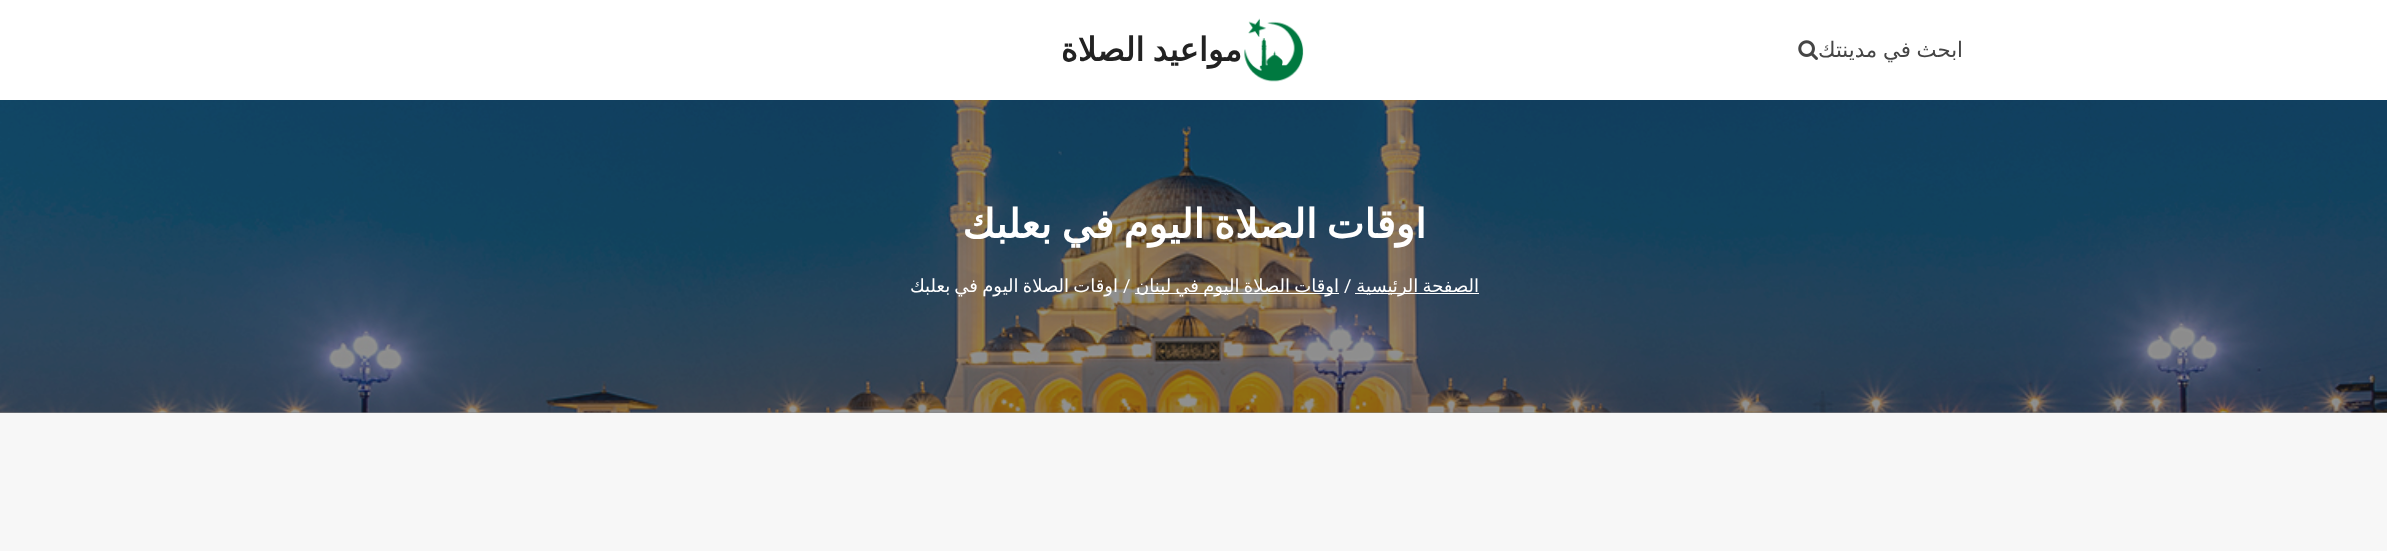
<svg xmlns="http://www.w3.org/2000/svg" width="2387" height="551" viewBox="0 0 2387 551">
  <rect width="100%" height="100%" fill="#f7f7f7"/>
  <path d="M0 0h2387v100H0z" fill="#fff"/>
  <image x="1798" y="40" width="20" height="20" href="img/1.png"/>
  <image x="1244" y="18" width="60" height="64" href="img/2.png"/>
  <path d="M0 412h2387v1H0z" fill="#888"/>
  <image x="0" y="100" width="2387" height="313" href="img/3.png"/>
  <path d="M1355 293h124v1H1355z" fill="#fff"/>
  <path d="M1135 293h204v1H1135z" fill="#fff"/>
  <text x="1963" y="57" word-spacing="-1" font-family="DejaVu Sans" font-size="21.25" direction="rtl" fill="#454545">ابحث في مدينتك</text>
  <text x="1242" y="61" word-spacing="-2" font-family="DejaVu Sans" font-size="32.5" font-weight="bold" direction="rtl" fill="#222">مواعيد الصلاة</text>
  <text x="1426" y="238" word-spacing="-3" font-family="DejaVu Sans" font-size="40" font-weight="bold" direction="rtl" fill="#fff">اوقات الصلاة اليوم في بعلبك</text>
  <text x="1479" y="292" word-spacing="-1.5" font-family="DejaVu Sans" font-size="18" direction="rtl" fill="#fff">الصفحة الرئيسية</text>
  <text x="1344" y="292" font-family="Roboto" font-size="18" fill="#fff">/</text>
  <text x="1339" y="292" word-spacing="-1.5" font-family="DejaVu Sans" font-size="18" direction="rtl" fill="#fff">اوقات الصلاة اليوم في لبنان</text>
  <text x="1123" y="292" font-family="Roboto" font-size="18" fill="#fff">/</text>
  <text x="1118" y="292" word-spacing="-1.5" font-family="DejaVu Sans" font-size="18" direction="rtl" fill="#fff">اوقات الصلاة اليوم في بعلبك</text>
</svg>
